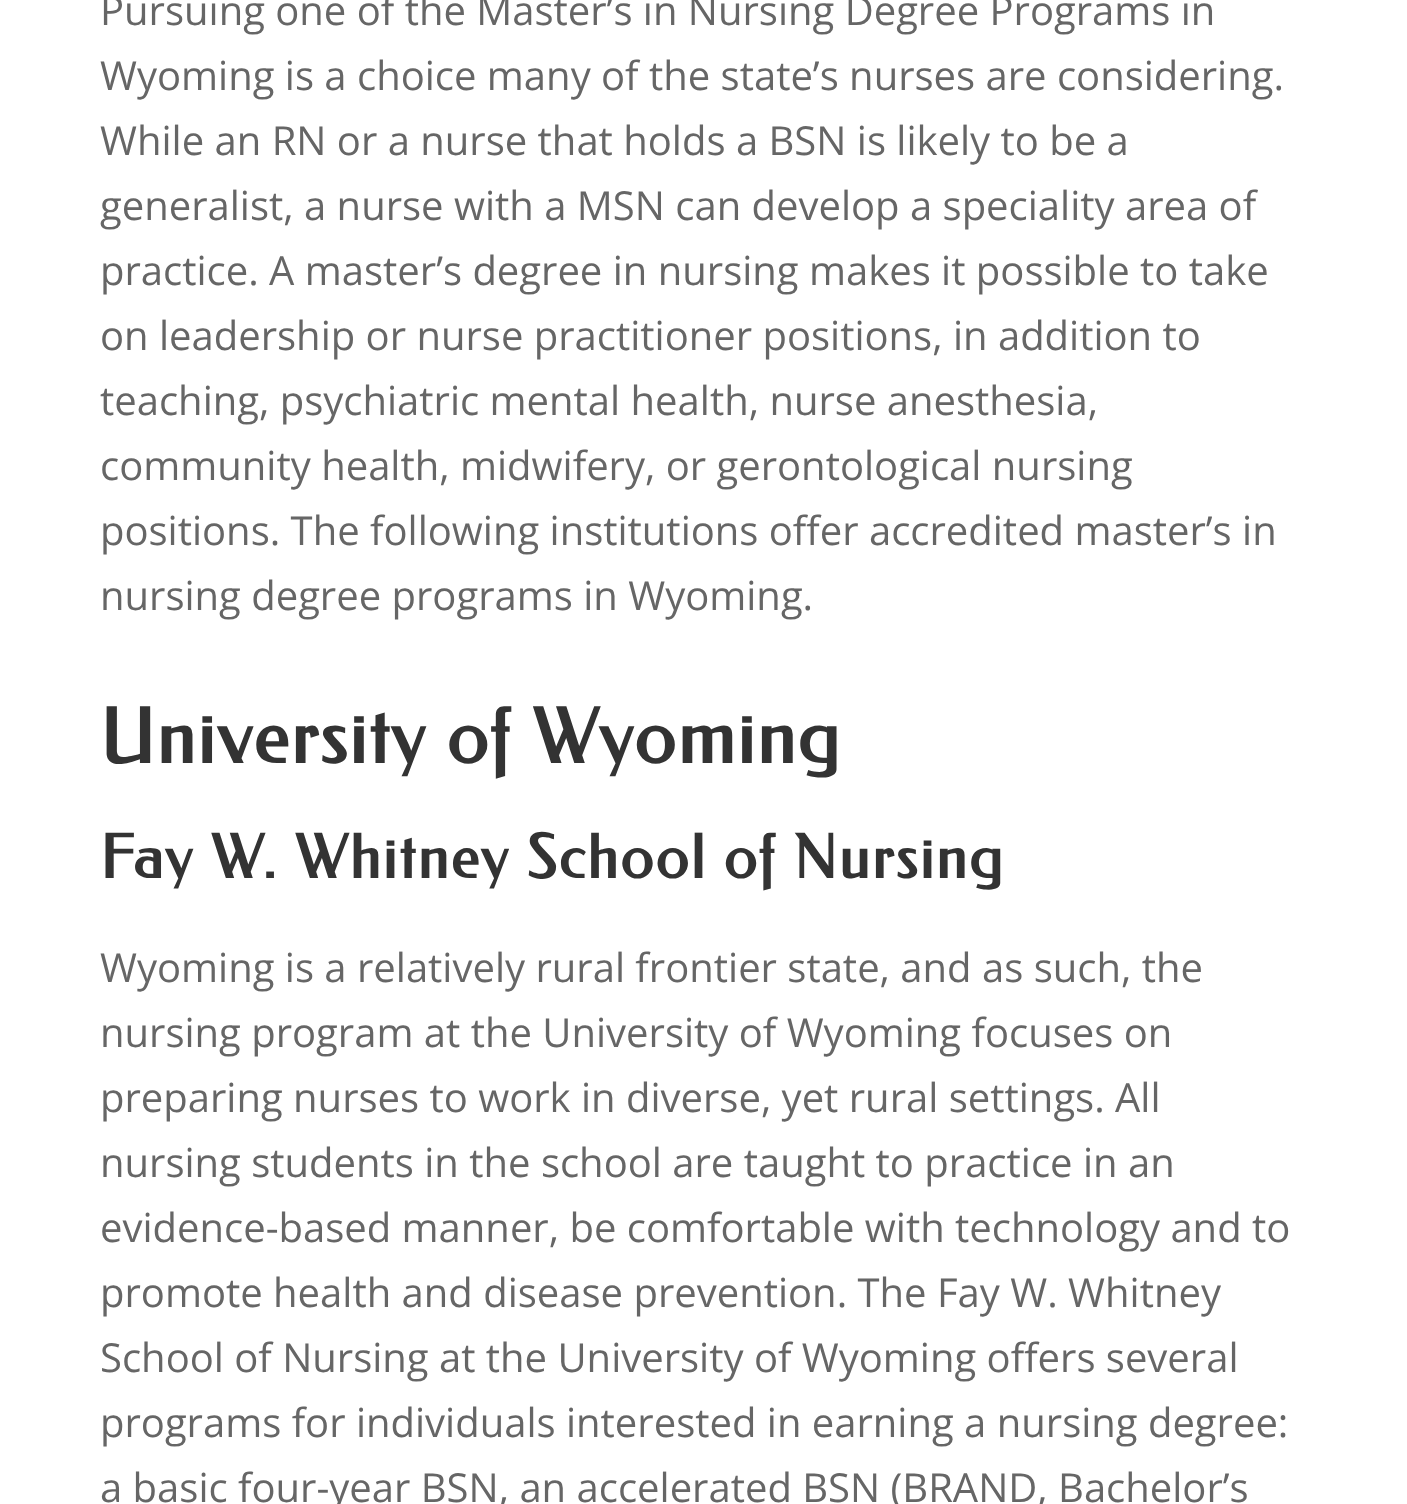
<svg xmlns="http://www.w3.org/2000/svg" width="1407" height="1504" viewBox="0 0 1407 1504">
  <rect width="100%" height="100%" fill="#fff"/>
  <g font-family="Open Sans" font-size="40" fill="#666">
    <text x="100" y="25">Pursuing one of the Master’s in Nursing Degree Programs in</text>
    <text x="100" y="90">Wyoming is a choice many of the state’s nurses are considering.</text>
    <text x="100" y="155">While an RN or a nurse that holds a BSN is likely to be a</text>
    <text x="100" y="220">generalist, a nurse with a MSN can develop a speciality area of</text>
    <text x="100" y="285">practice. A master’s degree in nursing makes it possible to take</text>
    <text x="100" y="350">on leadership or nurse practitioner positions, in addition to</text>
    <text x="100" y="415">teaching, psychiatric mental health, nurse anesthesia,</text>
    <text x="100" y="480">community health, midwifery, or gerontological nursing</text>
    <text x="100" y="545">positions. The following institutions offer accredited master’s in</text>
    <text x="100" y="610">nursing degree programs in Wyoming.</text>
  </g>
  <text x="100" y="763" font-family="Federo" font-size="75" font-weight="bold" letter-spacing="2.5" fill="#333">University of Wyoming</text>
  <text x="100" y="878" font-family="Federo" font-size="60" font-weight="bold" letter-spacing="2.5" fill="#333">Fay W. Whitney School of Nursing</text>
  <g font-family="Open Sans" font-size="40" fill="#666">
    <text x="100" y="982">Wyoming is a relatively rural frontier state, and as such, the</text>
    <text x="100" y="1047">nursing program at the University of Wyoming focuses on</text>
    <text x="100" y="1112">preparing nurses to work in diverse, yet rural settings. All</text>
    <text x="100" y="1177">nursing students in the school are taught to practice in an</text>
    <text x="100" y="1242">evidence-based manner, be comfortable with technology and to</text>
    <text x="100" y="1307">promote health and disease prevention. The Fay W. Whitney</text>
    <text x="100" y="1372">School of Nursing at the University of Wyoming offers several</text>
    <text x="100" y="1437">programs for individuals interested in earning a nursing degree:</text>
    <text x="100" y="1502">a basic four-year BSN, an accelerated BSN (BRAND, Bachelor’s</text>
  </g>
</svg>
